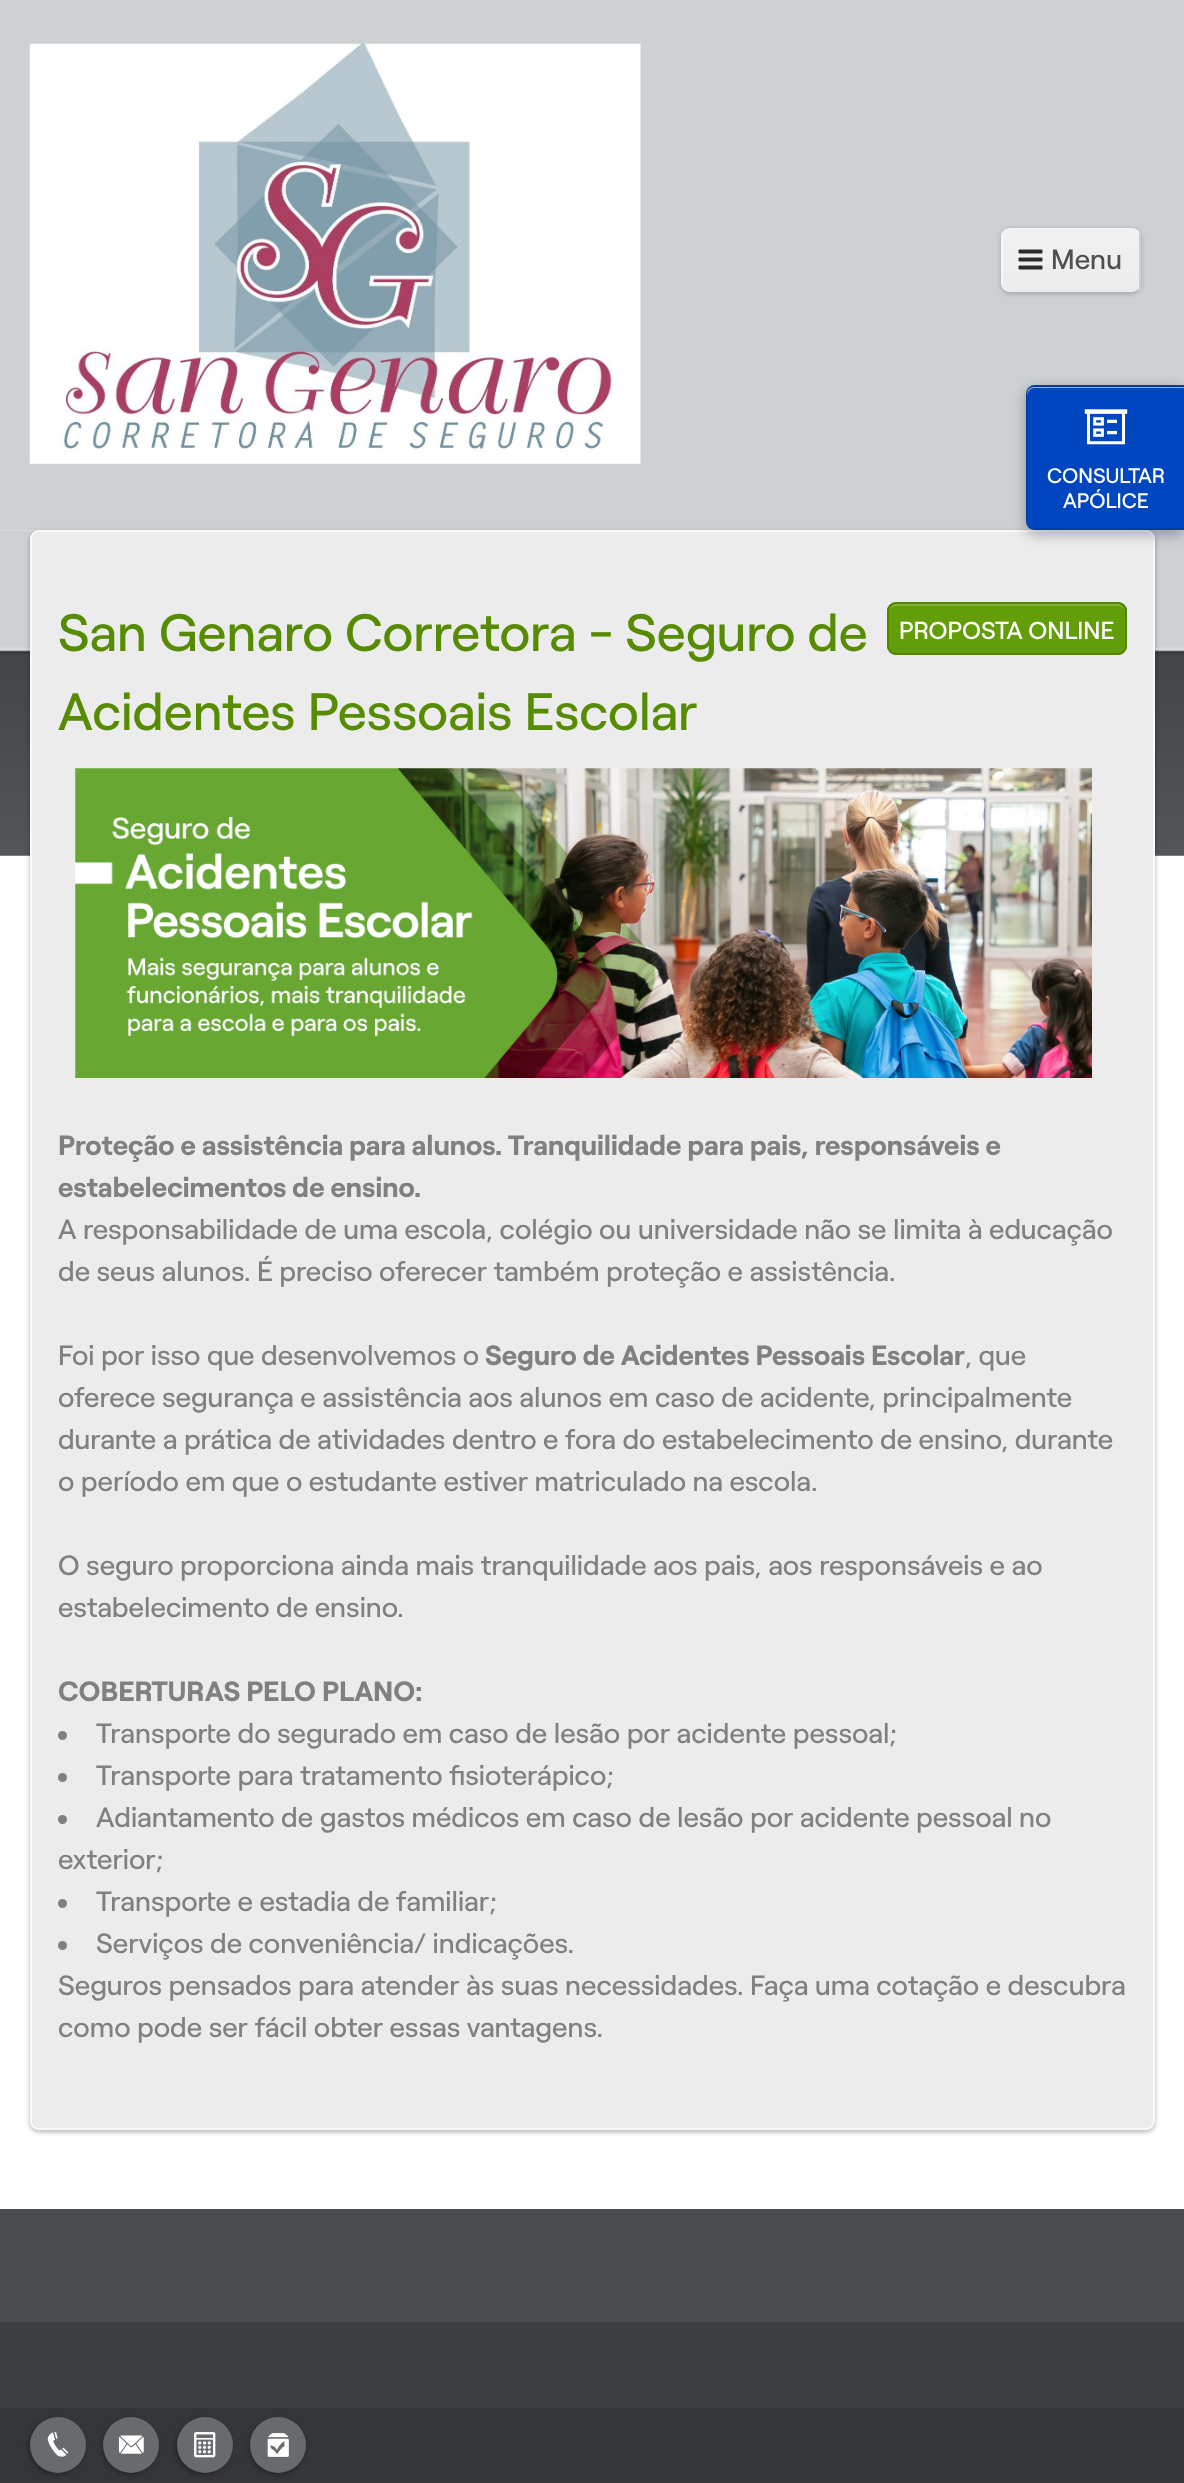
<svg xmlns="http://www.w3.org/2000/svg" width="1184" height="2483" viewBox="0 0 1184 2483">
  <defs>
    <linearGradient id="g1" gradientUnits="userSpaceOnUse" x1="1071" y1="228" x2="1071" y2="292"><stop offset="0" stop-color="#fff" stop-opacity="0.3"/><stop offset="1" stop-color="#fff" stop-opacity="0"/></linearGradient>
  </defs>
  <rect width="100%" height="100%" fill="#fff"/>
  <path d="M0 0h1184v530H0z" fill="#cdd1d4"/>
  <image x="29" y="43" width="612" height="421" href="img/1.png"/>
  <rect x="1001" y="229" width="140" height="65" rx="9" fill="#00000033" filter="blur(2.5px)"/>
  <rect x="1001" y="228" width="140" height="64" rx="9" fill="#ececec"/>
  <rect x="1001" y="228" width="140" height="64" rx="9" fill="url(#g1)"/>
  <path d="M1010 228C1005 228 1001 232 1001 237V283C1001 288 1005 292 1010 292H1012C1007 292 1003 288 1003 284V236C1003 231 1007 228 1012 228Z" fill="#ffffff80"/>
  <path d="M1139 228h2v64H1139z" fill="#cecece"/>
  <image x="1018" y="249" width="25" height="21" href="img/2.png"/>
  <image x="0" y="530" width="1184" height="326" href="img/3.png"/>
  <rect x="30" y="532" width="1125" height="1600" rx="9" fill="#0000004d" filter="blur(2.5px)"/>
  <rect x="30" y="530" width="1125" height="1600" rx="9" fill="#ececec"/>
  <rect x="31" y="531" width="1123" height="1598" rx="8" fill="none" stroke="#ffffffb3" stroke-width="2"/>
  <image x="75" y="768" width="1017" height="310" href="img/4.png"/>
  <circle cx="62.5" cy="1735.5" r="4.5" fill="#808080"/>
  <circle cx="62.5" cy="1777.5" r="4.5" fill="#808080"/>
  <circle cx="62.5" cy="1819.5" r="4.5" fill="#808080"/>
  <circle cx="62.5" cy="1903.5" r="4.5" fill="#808080"/>
  <circle cx="62.5" cy="1945.5" r="4.5" fill="#808080"/>
  <rect x="887" y="602" width="240" height="53" rx="9" fill="#649d0a"/>
  <path d="M896 606H1118C1122 606 1125 609 1125 612C1125 608 1123 605 1119 604H895C891 605 889 608 889 612C889 609 892 606 896 606Z" fill="#83b13b"/>
  <rect x="888" y="603" width="238" height="51" rx="8" fill="none" stroke="#518401" stroke-width="2"/>
  <path d="M0 2209h1184v113H0z" fill="#484c4f"/>
  <rect x="1026" y="389" width="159" height="145" rx="9" fill="#0000004d" filter="blur(7px)"/>
  <path d="M1035 385H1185V530H1035C1030 530 1026 526 1026 521V394C1026 389 1030 385 1035 385Z" fill="#0046c0"/>
  <path d="M1034 388H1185V387H1034C1030 387 1027 390 1027 394V396C1027 392 1030 388 1034 388Z" fill="#99b5e6"/>
  <path d="M1034 385H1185V530H1034C1029 530 1026 526 1026 522V394C1026 389 1029 385 1034 385ZM1034 387H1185V528H1034C1030 528 1027 525 1027 522V394C1027 390 1030 387 1034 387Z" fill="#00000026" fill-rule="evenodd"/>
  <image x="1084" y="409" width="44" height="36" href="img/5.png"/>
  <path d="M0 2322h1184v86H0z" fill="#3c3f42"/>
  <path d="M0 2408h1184v75H0z" fill="#343638"/>
  <rect x="28" y="2419" width="56" height="56" rx="28" fill="#0000004d" filter="blur(2px)"/>
  <circle cx="58" cy="2445" r="28" fill="#686b6d"/>
  <image x="47" y="2432" width="22" height="25" href="img/6.png"/>
  <rect x="102" y="2419" width="56" height="56" rx="28" fill="#0000004d" filter="blur(2px)"/>
  <circle cx="131" cy="2445" r="28" fill="#686b6d"/>
  <image x="118" y="2435" width="26" height="19" href="img/7.png"/>
  <rect x="175" y="2419" width="56" height="56" rx="28" fill="#0000004d" filter="blur(2px)"/>
  <circle cx="205" cy="2445" r="28" fill="#686b6d"/>
  <image x="194" y="2432" width="22" height="26" href="img/8.png"/>
  <rect x="249" y="2419" width="56" height="56" rx="28" fill="#0000004d" filter="blur(2px)"/>
  <circle cx="278" cy="2445" r="28" fill="#686b6d"/>
  <image x="267" y="2433" width="22" height="24" href="img/9.png"/>
  <text x="1051" y="269" font-family="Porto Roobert" font-size="28" font-weight="500" fill="#4f4f4f">Menu</text>
  <g font-family="Porto Roobert" font-size="52.5" font-weight="500" fill="#568b02">
    <text x="58" y="651">San Genaro Corretora - Seguro de</text>
    <text x="58" y="730">Acidentes Pessoais Escolar</text>
  </g>
  <g font-family="Porto Roobert" font-size="28" font-weight="bold" fill="#808080">
    <text x="58" y="1155">Proteção e assistência para alunos. Tranquilidade para pais, responsáveis e</text>
    <text x="58" y="1197">estabelecimentos de ensino.</text>
  </g>
  <g font-family="Porto Roobert" font-size="28" font-weight="500" fill="#808080">
    <text x="58" y="1239">A responsabilidade de uma escola, colégio ou universidade não se limita à educação</text>
    <text x="58" y="1281">de seus alunos. É preciso oferecer também proteção e assistência.</text>
    <text x="58" y="1365">Foi por isso que desenvolvemos o</text>
  </g>
  <text x="485" y="1365" font-family="Porto Roobert" font-size="28" font-weight="bold" fill="#808080">Seguro de Acidentes Pessoais Escolar</text>
  <g font-family="Porto Roobert" font-size="28" font-weight="500" fill="#808080">
    <text x="965" y="1365">, que</text>
    <text x="58" y="1407">oferece segurança e assistência aos alunos em caso de acidente, principalmente</text>
    <text x="58" y="1449">durante a prática de atividades dentro e fora do estabelecimento de ensino, durante</text>
    <text x="58" y="1491">o período em que o estudante estiver matriculado na escola.</text>
    <text x="58" y="1575">O seguro proporciona ainda mais tranquilidade aos pais, aos responsáveis e ao</text>
    <text x="58" y="1617">estabelecimento de ensino.</text>
  </g>
  <text x="58" y="1701" font-family="Porto Roobert" font-size="28" font-weight="bold" fill="#808080">COBERTURAS PELO PLANO:</text>
  <g font-family="Porto Roobert" font-size="28" font-weight="500" fill="#808080">
    <text x="96" y="1743">Transporte do segurado em caso de lesão por acidente pessoal;</text>
    <text x="96" y="1785">Transporte para tratamento fisioterápico;</text>
    <text x="96" y="1827">Adiantamento de gastos médicos em caso de lesão por acidente pessoal no</text>
    <text x="58" y="1869">exterior;</text>
    <text x="96" y="1911">Transporte e estadia de familiar;</text>
    <text x="96" y="1953">Serviços de conveniência/ indicações.</text>
    <text x="58" y="1995">Seguros pensados para atender às suas necessidades. Faça uma cotação e descubra</text>
    <text x="58" y="2037">como pode ser fácil obter essas vantagens.</text>
  </g>
  <text x="899" y="639" font-family="Porto Roobert" font-size="24.5" font-weight="500" fill="#fff">PROPOSTA ONLINE</text>
  <g font-family="Porto Roobert" font-size="21" font-weight="500" fill="#fff">
    <text x="1047" y="483">CONSULTAR</text>
    <text x="1063" y="508">APÓLICE</text>
  </g>
</svg>
